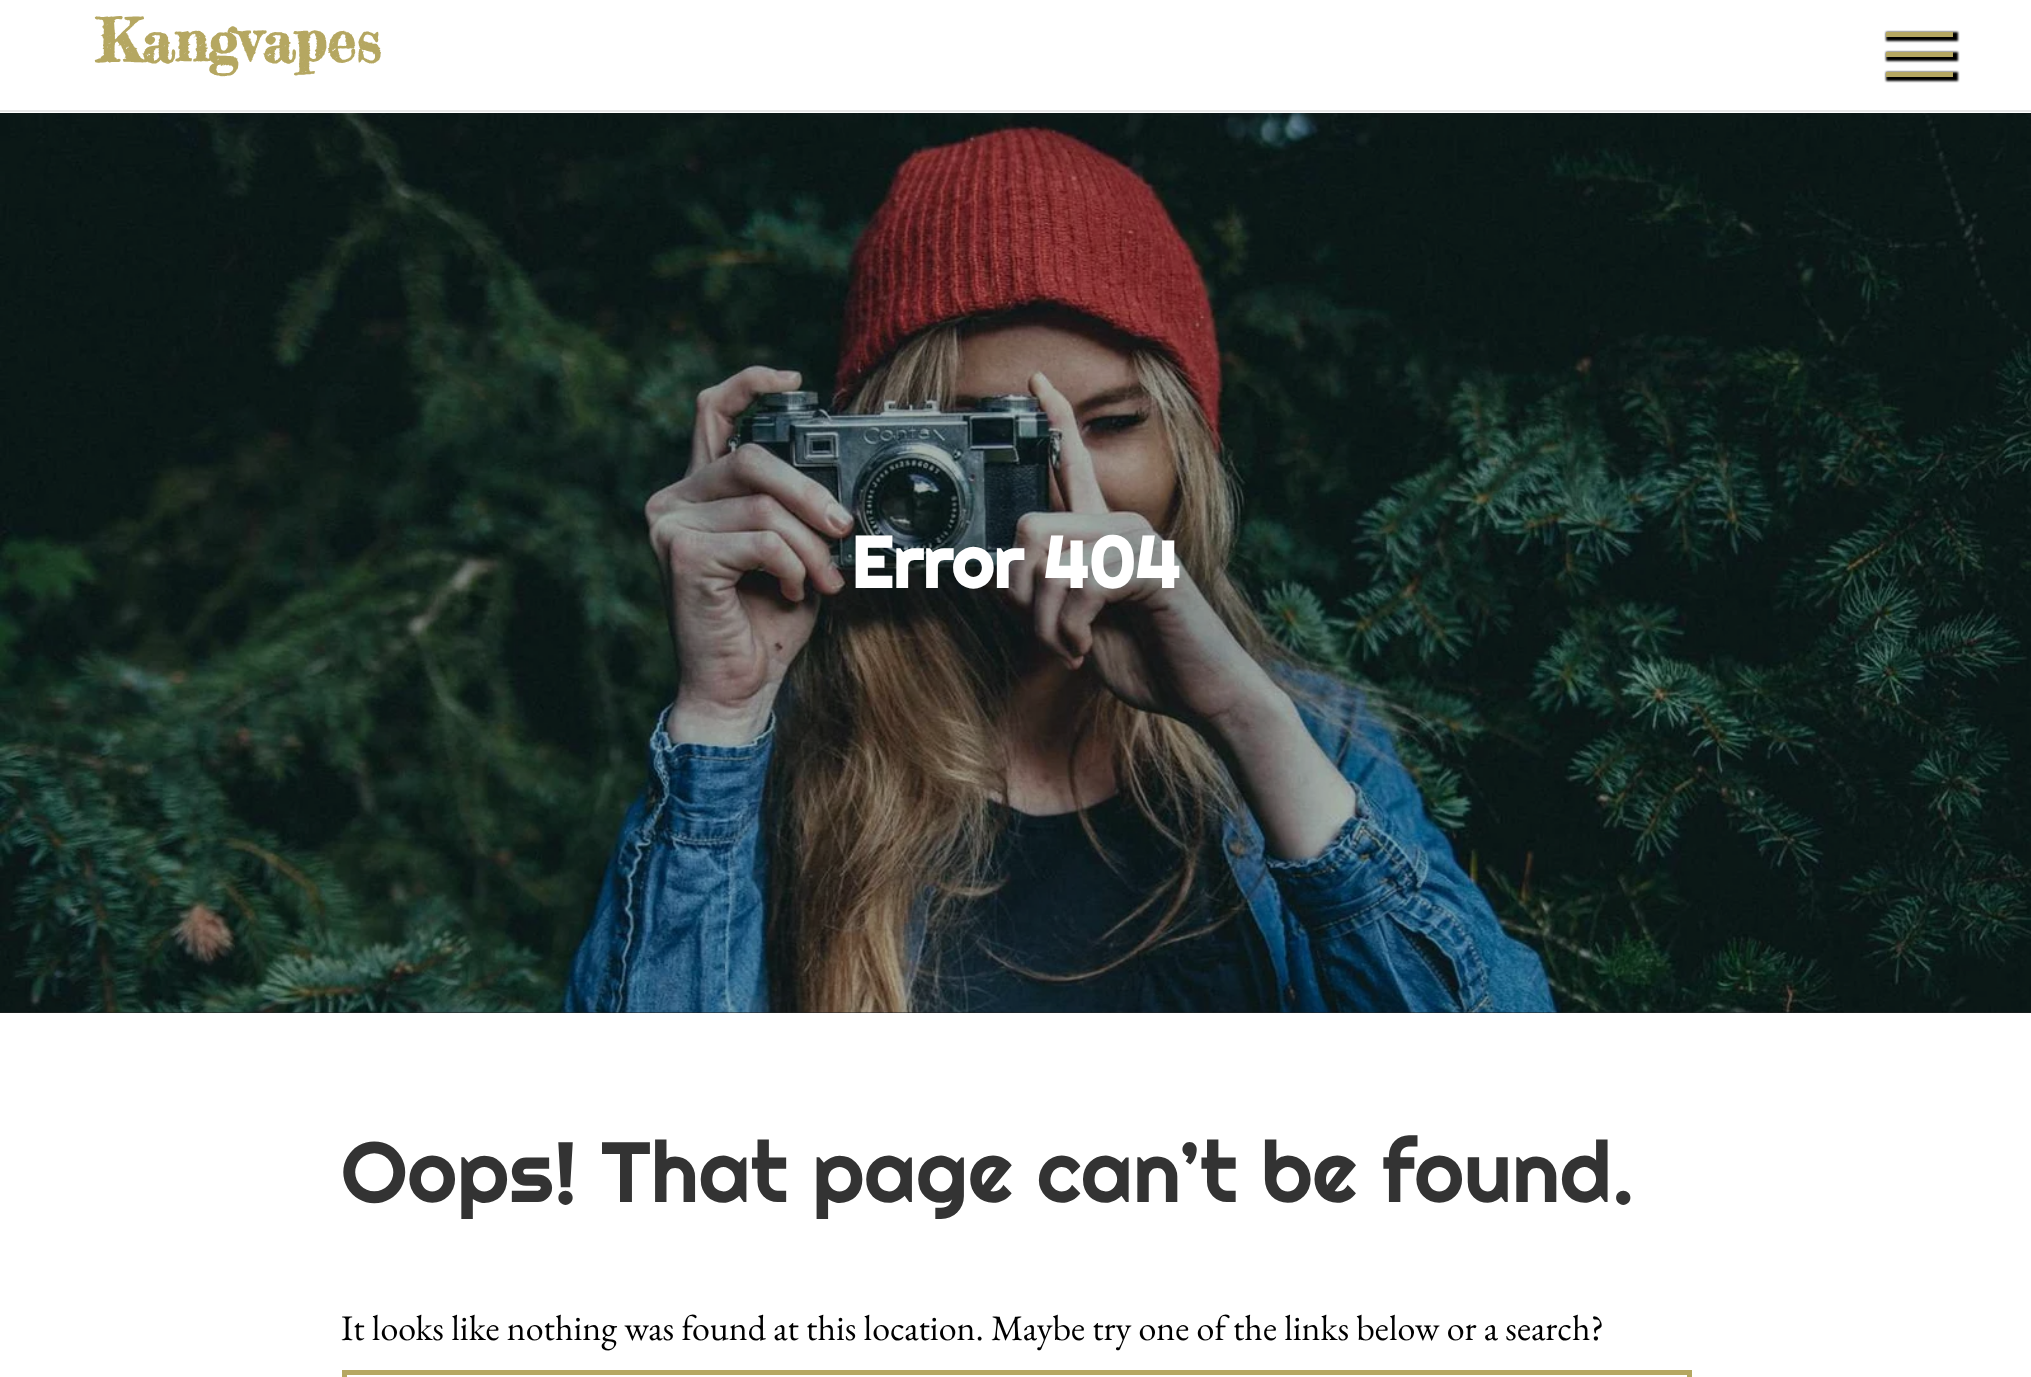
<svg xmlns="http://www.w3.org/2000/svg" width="2031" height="1377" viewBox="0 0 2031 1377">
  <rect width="100%" height="100%" fill="#fff"/>
  <path d="M0 110h2031v2H0z" fill="#e5e5e5"/>
  <path d="M1886 32h72v9H1886z" fill="#000" filter="blur(1px)"/>
  <path d="M1886 32h67v5H1886z" fill="#b5a761"/>
  <path d="M1886 52h72v9H1886z" fill="#000" filter="blur(1px)"/>
  <path d="M1886 52h67v5H1886z" fill="#b5a761"/>
  <path d="M1886 72h72v9H1886z" fill="#000" filter="blur(1px)"/>
  <path d="M1886 72h67v5H1886z" fill="#b5a761"/>
  <path d="M0 1012h2031v1H0z" fill="#242424"/>
  <image x="0" y="113" width="2031" height="900" href="img/1.png"/>
  <path d="M344.5 1372.5h1345v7H344.5z" fill="none" stroke="#b5a761" stroke-width="5"/>
  <text x="96" y="62" font-family="Fredericka the Great" font-size="58.5" font-weight="bold" fill="#b5a761">Kangvapes</text>
  <text x="851" y="588" font-family="Righteous" font-size="72" font-weight="bold" fill="#fff">Error 404</text>
  <text x="341" y="1202" font-family="Righteous" font-size="85.5" fill="#333">Oops! That page can’t be found.</text>
  <text x="341" y="1340" font-family="EB Garamond" font-size="36" fill="#000">It looks like nothing was found at this location. Maybe try one of the links below or a search?</text>
</svg>
